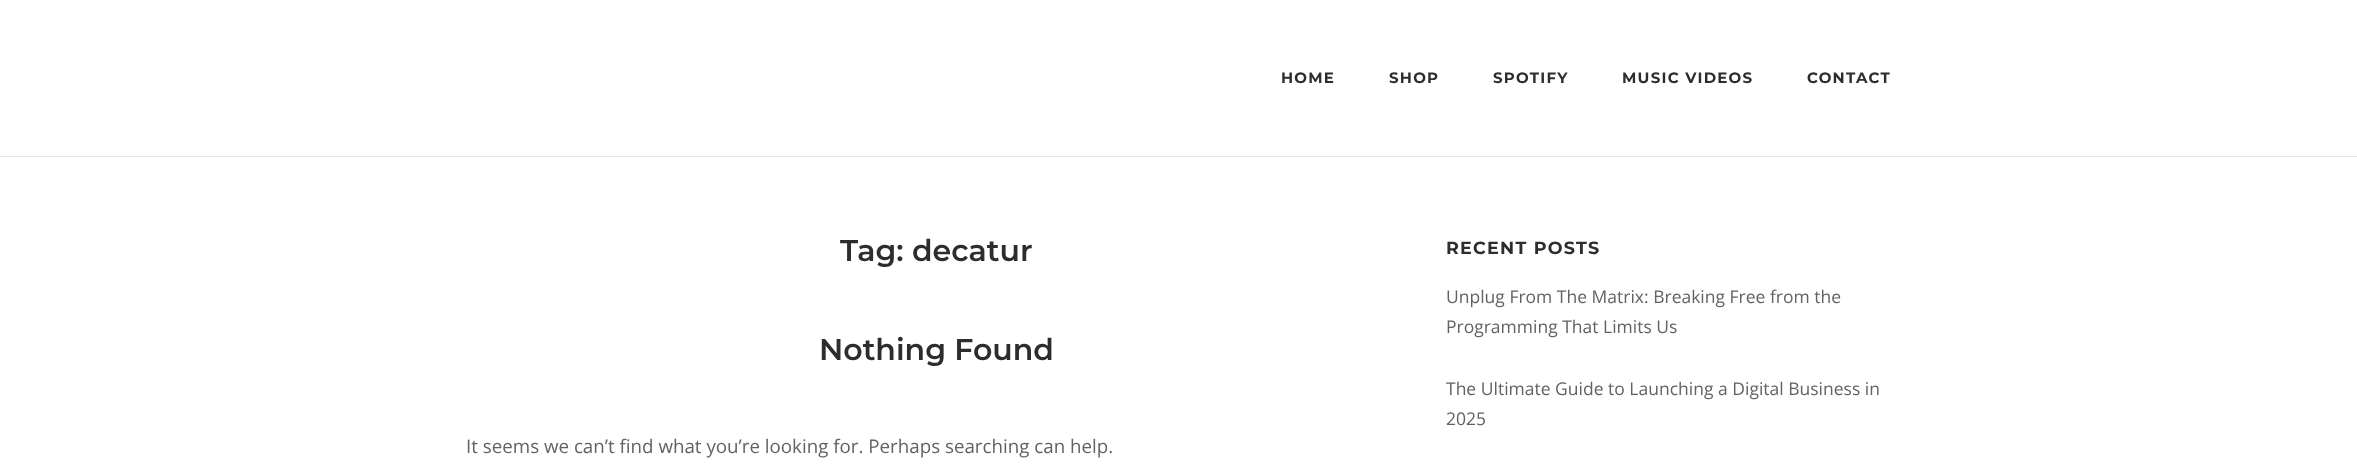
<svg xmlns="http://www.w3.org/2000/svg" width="2357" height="466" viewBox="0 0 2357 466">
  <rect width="100%" height="100%" fill="#fff"/>
  <path d="M0 156h2357v1H0z" fill="#e6e6e6"/>
  <g font-family="Montserrat" font-size="15" font-weight="bold" letter-spacing="1.25" fill="#2d2d2d">
    <text x="1281" y="83">HOME</text>
    <text x="1389" y="83">SHOP</text>
    <text x="1493" y="83">SPOTIFY</text>
    <text x="1622" y="83">MUSIC VIDEOS</text>
    <text x="1807" y="83">CONTACT</text>
  </g>
  <g font-family="Montserrat" font-size="30" font-weight="600" fill="#2d2d2d">
    <text x="840" y="261">Tag: decatur</text>
    <text x="819" y="360">Nothing Found</text>
  </g>
  <text x="466" y="453" font-family="Open Sans" font-size="18.75" fill="#626262">It seems we can’t find what you’re looking for. Perhaps searching can help.</text>
  <text x="1446" y="254" font-family="Montserrat" font-size="17.5" font-weight="bold" letter-spacing="1.25" fill="#2d2d2d">RECENT POSTS</text>
  <g font-family="Open Sans" font-size="17.5" fill="#626262">
    <text x="1446" y="303">Unplug From The Matrix: Breaking Free from the</text>
    <text x="1446" y="333">Programming That Limits Us</text>
    <text x="1446" y="395">The Ultimate Guide to Launching a Digital Business in</text>
    <text x="1446" y="425">2025</text>
  </g>
</svg>
